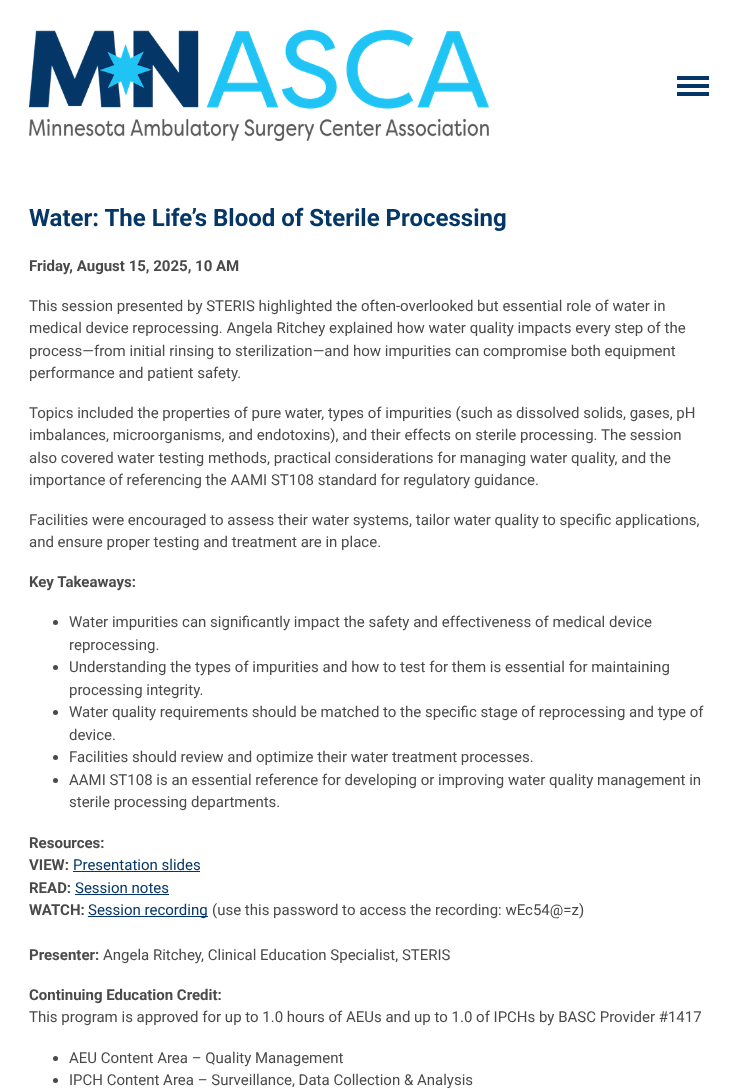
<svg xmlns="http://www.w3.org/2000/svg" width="738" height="1088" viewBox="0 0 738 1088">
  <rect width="100%" height="100%" fill="#fff"/>
  <image x="29" y="30" width="460" height="111" href="img/1.png"/>
  <image x="677" y="76" width="32" height="20" href="img/2.png"/>
  <circle cx="55.5" cy="622.5" r="2.5" fill="#4a4a4a"/>
  <circle cx="55.5" cy="667.5" r="2.5" fill="#4a4a4a"/>
  <circle cx="55.5" cy="712.5" r="2.5" fill="#4a4a4a"/>
  <circle cx="55.5" cy="757.5" r="2.5" fill="#4a4a4a"/>
  <circle cx="55.5" cy="780.5" r="2.5" fill="#4a4a4a"/>
  <path d="M73 871h127v1H73z" fill="#043767"/>
  <path d="M75 894h94v1H75z" fill="#043767"/>
  <path d="M88 916h120v1H88z" fill="#043767"/>
  <circle cx="55.5" cy="1058.5" r="2.5" fill="#4a4a4a"/>
  <circle cx="55.5" cy="1080.5" r="2.5" fill="#4a4a4a"/>
  <text x="29" y="226" font-family="Roboto" font-size="24" font-weight="bold" fill="#043767">Water: The Life’s Blood of Sterile Processing</text>
  <text x="29" y="271" font-family="Roboto" font-size="15" font-weight="bold" fill="#4a4a4a">Friday, August 15, 2025, 10 AM</text>
  <g font-family="Roboto" font-size="15" fill="#4a4a4a">
    <text x="29" y="311">This session presented by STERIS highlighted the often-overlooked but essential role of water in</text>
    <text x="29" y="333">medical device reprocessing. Angela Ritchey explained how water quality impacts every step of the</text>
    <text x="29" y="356">process—from initial rinsing to sterilization—and how impurities can compromise both equipment</text>
    <text x="29" y="378">performance and patient safety.</text>
    <text x="29" y="418">Topics included the properties of pure water, types of impurities (such as dissolved solids, gases, pH</text>
    <text x="29" y="440">imbalances, microorganisms, and endotoxins), and their effects on sterile processing. The session</text>
    <text x="29" y="463">also covered water testing methods, practical considerations for managing water quality, and the</text>
    <text x="29" y="485">importance of referencing the AAMI ST108 standard for regulatory guidance.</text>
    <text x="29" y="525">Facilities were encouraged to assess their water systems, tailor water quality to specific applications,</text>
    <text x="29" y="547">and ensure proper testing and treatment are in place.</text>
  </g>
  <text x="29" y="587" font-family="Roboto" font-size="15" font-weight="bold" fill="#4a4a4a">Key Takeaways:</text>
  <g font-family="Roboto" font-size="15" fill="#4a4a4a">
    <text x="69" y="627">Water impurities can significantly impact the safety and effectiveness of medical device</text>
    <text x="69" y="650">reprocessing.</text>
    <text x="69" y="672">Understanding the types of impurities and how to test for them is essential for maintaining</text>
    <text x="69" y="695">processing integrity.</text>
    <text x="69" y="717">Water quality requirements should be matched to the specific stage of reprocessing and type of</text>
    <text x="69" y="740">device.</text>
    <text x="69" y="762">Facilities should review and optimize their water treatment processes.</text>
    <text x="69" y="785">AAMI ST108 is an essential reference for developing or improving water quality management in</text>
    <text x="69" y="807">sterile processing departments.</text>
  </g>
  <g font-family="Roboto" font-size="15" font-weight="bold" fill="#4a4a4a">
    <text x="29" y="848">Resources:</text>
    <text x="29" y="870">VIEW:</text>
  </g>
  <text x="73" y="870" font-family="Roboto" font-size="15" fill="#043767">Presentation slides</text>
  <text x="29" y="893" font-family="Roboto" font-size="15" font-weight="bold" fill="#4a4a4a">READ:</text>
  <text x="75" y="893" font-family="Roboto" font-size="15" fill="#043767">Session notes</text>
  <text x="29" y="915" font-family="Roboto" font-size="15" font-weight="bold" fill="#4a4a4a">WATCH:</text>
  <text x="88" y="915" font-family="Roboto" font-size="15" fill="#043767">Session recording</text>
  <text x="212" y="915" font-family="Roboto" font-size="15" fill="#4a4a4a">(use this password to access the recording: wEc54@=z)</text>
  <text x="29" y="960" font-family="Roboto" font-size="15" font-weight="bold" fill="#4a4a4a">Presenter:</text>
  <text x="103" y="960" font-family="Roboto" font-size="15" fill="#4a4a4a">Angela Ritchey, Clinical Education Specialist, STERIS</text>
  <text x="29" y="1000" font-family="Roboto" font-size="15" font-weight="bold" fill="#4a4a4a">Continuing Education Credit:</text>
  <g font-family="Roboto" font-size="15" fill="#4a4a4a">
    <text x="29" y="1022">This program is approved for up to 1.0 hours of AEUs and up to 1.0 of IPCHs by BASC Provider #1417</text>
    <text x="69" y="1063">AEU Content Area – Quality Management</text>
    <text x="69" y="1085">IPCH Content Area – Surveillance, Data Collection &amp; Analysis</text>
  </g>
</svg>
